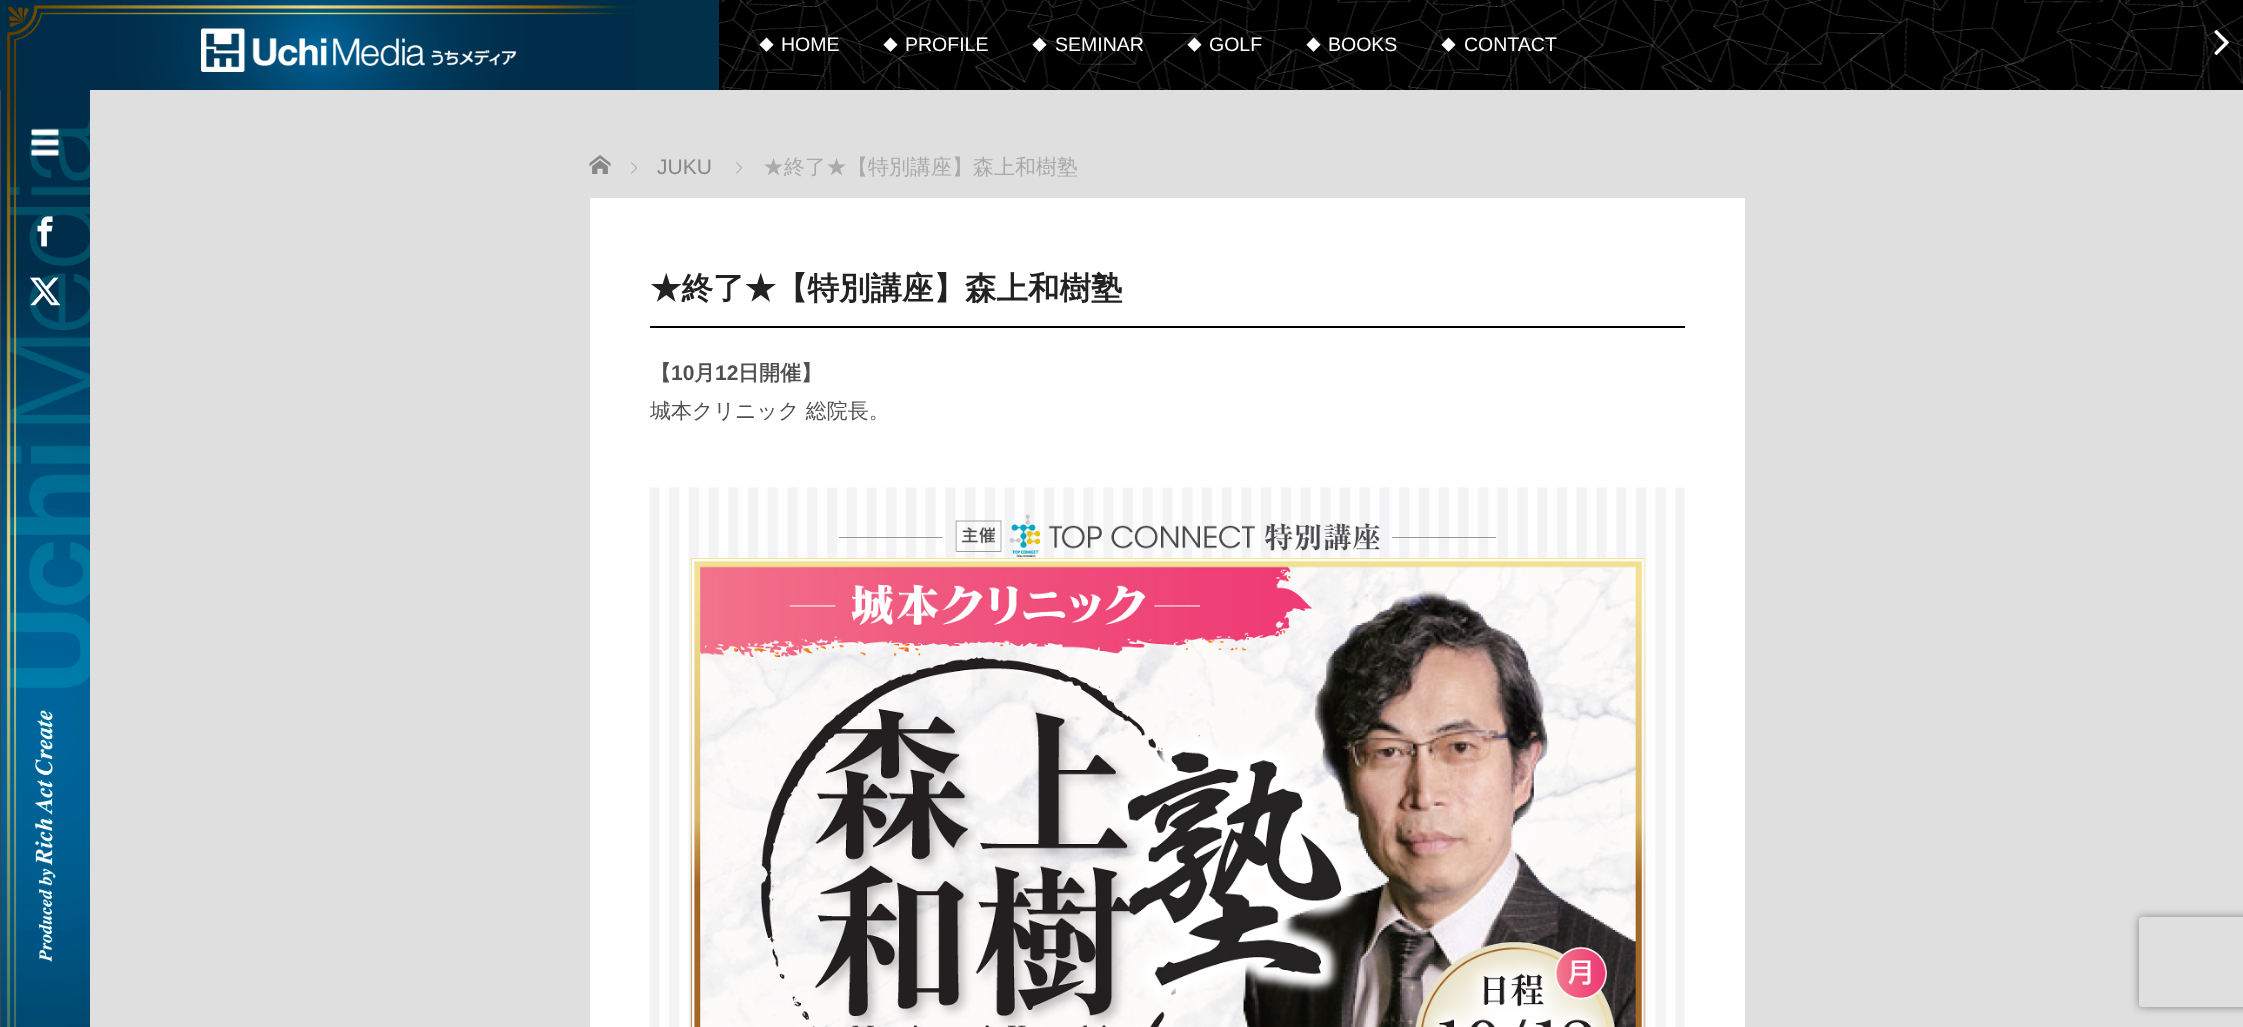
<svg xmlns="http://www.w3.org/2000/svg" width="2243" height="1027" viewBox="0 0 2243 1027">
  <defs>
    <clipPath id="clip1"><path d="M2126 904H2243V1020H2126ZM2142 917H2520C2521.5 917 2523 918.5 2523 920V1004C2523 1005.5 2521.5 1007 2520 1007H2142C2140.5 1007 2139 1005.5 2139 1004V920C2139 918.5 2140.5 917 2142 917Z" clip-rule="evenodd"/></clipPath>
  </defs>
  <rect width="100%" height="100%" fill="#dfdfdf"/>
  <path d="M0 0h719v90H0z" fill="#01304a"/>
  <image x="6" y="0" width="629" height="90" href="img/1.png"/>
  <image x="201" y="28" width="316" height="44" href="img/2.png"/>
  <image x="719" y="0" width="1524" height="90" href="img/3.png"/>
  <image x="2214" y="30" width="15" height="25" href="img/4.png"/>
  <image x="1" y="90" width="89" height="937" href="img/5.png"/>
  <path d="M0 90h1v937H0z" fill="#444"/>
  <image x="31" y="128" width="28" height="28" href="img/6.png"/>
  <image x="37" y="216" width="16" height="31" href="img/7.png"/>
  <image x="29" y="277" width="32" height="29" href="img/8.png"/>
  <image x="589" y="155" width="22" height="19" href="img/9.png"/>
  <image x="631" y="162" width="6" height="12" href="img/10.png"/>
  <image x="736" y="162" width="6" height="12" href="img/10.png"/>
  <path d="M590 198h1155v829H590z" fill="#fff"/>
  <path d="M650 326h1035v2H650z" fill="#000"/>
  <image x="649" y="487" width="1036" height="540" href="img/11.png"/>
  <g clip-path="url(#clip1)">
    <rect x="2139" y="917" width="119" height="90" rx="3" fill="#808080" filter="blur(4px)"/>
  </g>
  <text x="759" y="50" font-family="WenQuanYi Zen Hei" font-size="15" font-weight="500" fill="#fff">◆</text>
  <text x="781" y="51" font-family="Liberation Sans" font-size="19.5" fill="#fff">HOME</text>
  <text x="883" y="50" font-family="WenQuanYi Zen Hei" font-size="15" font-weight="500" fill="#fff">◆</text>
  <text x="905" y="51" font-family="Liberation Sans" font-size="19.5" fill="#fff">PROFILE</text>
  <text x="1032" y="50" font-family="WenQuanYi Zen Hei" font-size="15" font-weight="500" fill="#fff">◆</text>
  <text x="1055" y="51" font-family="Liberation Sans" font-size="19.5" fill="#fff">SEMINAR</text>
  <text x="1187" y="50" font-family="WenQuanYi Zen Hei" font-size="15" font-weight="500" fill="#fff">◆</text>
  <text x="1209" y="51" font-family="Liberation Sans" font-size="19.5" fill="#fff">GOLF</text>
  <text x="1306" y="50" font-family="WenQuanYi Zen Hei" font-size="15" font-weight="500" fill="#fff">◆</text>
  <text x="1328" y="51" font-family="Liberation Sans" font-size="19.5" fill="#fff">BOOKS</text>
  <text x="1441" y="50" font-family="WenQuanYi Zen Hei" font-size="15" font-weight="500" fill="#fff">◆</text>
  <text x="1464" y="51" font-family="Liberation Sans" font-size="19.5" fill="#fff">CONTACT</text>
  <text x="657" y="174" font-family="Liberation Sans" font-size="21" fill="#888">JUKU</text>
  <text x="763" y="174" font-family="WenQuanYi Zen Hei" font-size="21" font-weight="500" fill="#aaa">★終了★【特別講座】森上和樹塾</text>
  <text x="650" y="299" font-family="WenQuanYi Zen Hei" font-size="31.5" font-weight="bold" fill="#222">★終了★【特別講座】森上和樹塾</text>
  <text x="650" y="380" font-family="WenQuanYi Zen Hei" font-size="21" font-weight="bold" fill="#505050">【</text>
  <text x="671" y="380" font-family="Liberation Sans" font-size="21" font-weight="bold" fill="#505050">10</text>
  <text x="694" y="380" font-family="WenQuanYi Zen Hei" font-size="21" font-weight="bold" fill="#505050">月</text>
  <text x="715" y="380" font-family="Liberation Sans" font-size="21" font-weight="bold" fill="#505050">12</text>
  <text x="738" y="380" font-family="WenQuanYi Zen Hei" font-size="21" font-weight="bold" fill="#505050">日開催】</text>
  <text x="650" y="418" font-family="WenQuanYi Zen Hei" font-size="21" font-weight="500" fill="#505050">城本クリニック 総院長。</text>
</svg>
